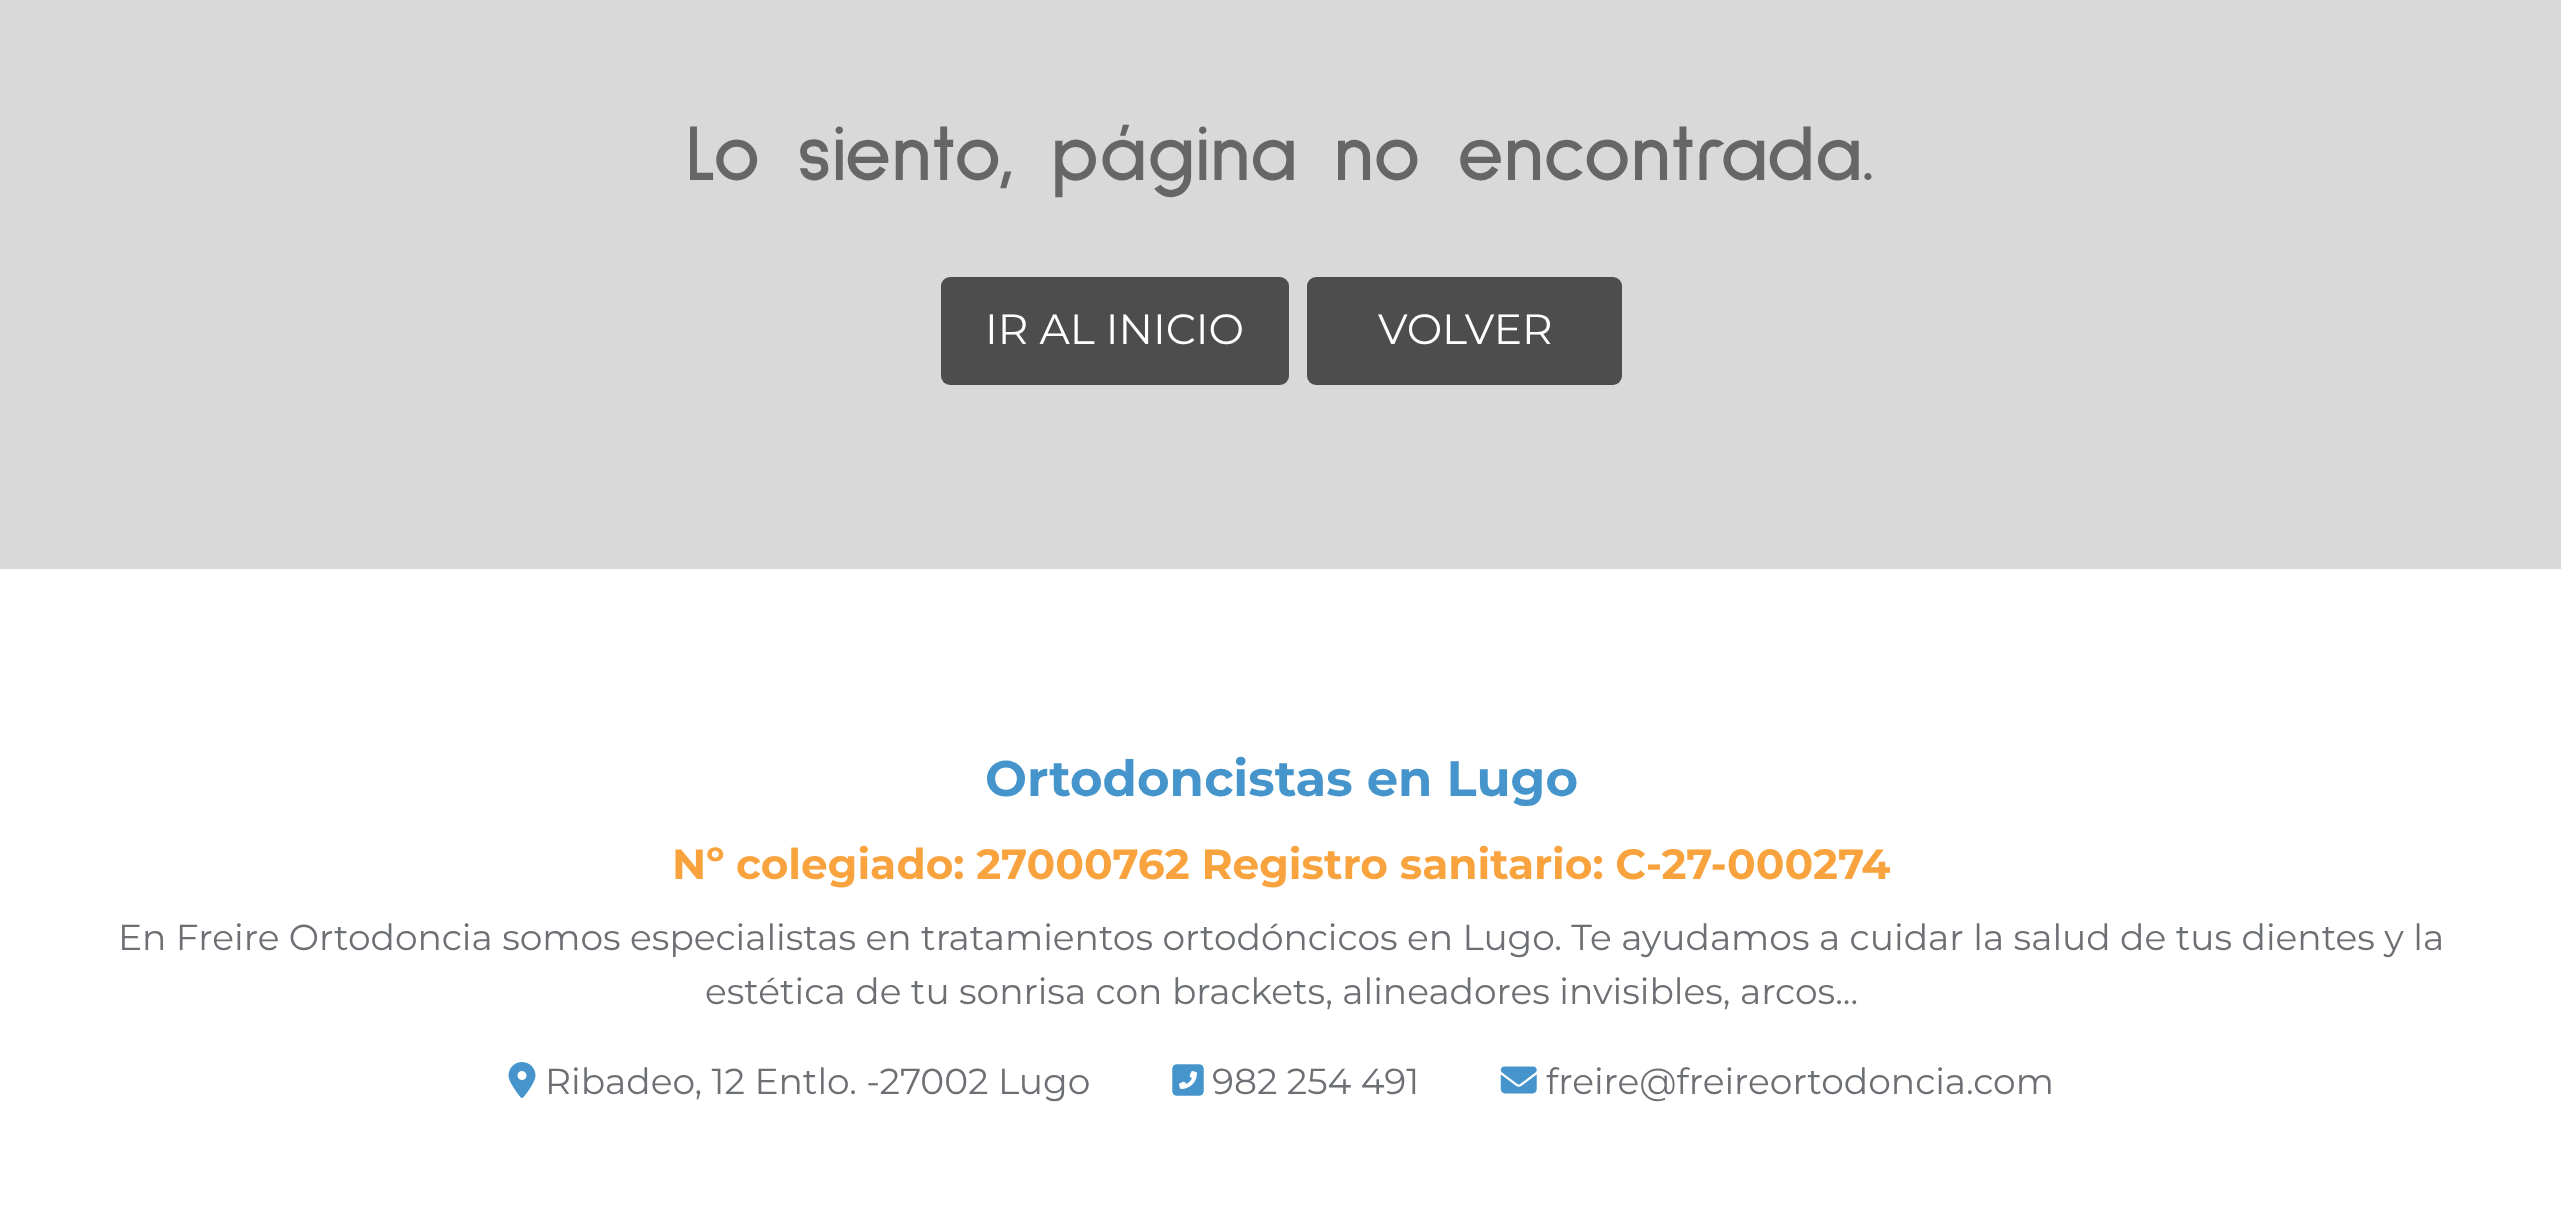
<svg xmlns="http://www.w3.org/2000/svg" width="2561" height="1231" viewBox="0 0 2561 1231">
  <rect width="100%" height="100%" fill="#fff"/>
  <path d="M0 0h2561v569H0z" fill="#d9d9d9"/>
  <rect x="941" y="277" width="348" height="108" rx="9" fill="#4d4d4d"/>
  <rect x="1307" y="277" width="315" height="108" rx="9" fill="#4d4d4d"/>
  <image x="508" y="1062" width="28" height="36" href="img/1.png"/>
  <image x="1172" y="1064" width="32" height="32" href="img/2.png"/>
  <image x="1500" y="1066" width="37" height="28" href="img/3.png"/>
  <text x="686" y="180" font-family="Sulphur Point" font-size="80.6" font-weight="bold" fill="#666">Lo siento, página no encontrada.</text>
  <g font-family="Montserrat" font-size="42.3" fill="#fff">
    <text x="985" y="344">IR AL INICIO</text>
    <text x="1378" y="344">VOLVER</text>
  </g>
  <text x="985" y="796" font-family="Montserrat" font-size="49.75" font-weight="bold" fill="#4595cc">Ortodoncistas en Lugo</text>
  <text x="672" y="879" word-spacing="-0.25" font-family="Montserrat" font-size="42.3" font-weight="bold" fill="#f9a33f">Nº colegiado: 27000762 Registro sanitario: C-27-000274</text>
  <g font-family="Montserrat" font-size="36" fill="#6c6f73">
    <text x="118" y="950">En Freire Ortodoncia somos especialistas en tratamientos ortodóncicos en Lugo. Te ayudamos a cuidar la salud de tus dientes y la</text>
    <text x="705" y="1004">estética de tu sonrisa con brackets, alineadores invisibles, arcos...</text>
    <text x="545" y="1094">Ribadeo, 12 Entlo. -27002 Lugo</text>
    <text x="1212" y="1094">982 254 491</text>
    <text x="1546" y="1094">freire@freireortodoncia.com</text>
  </g>
</svg>
